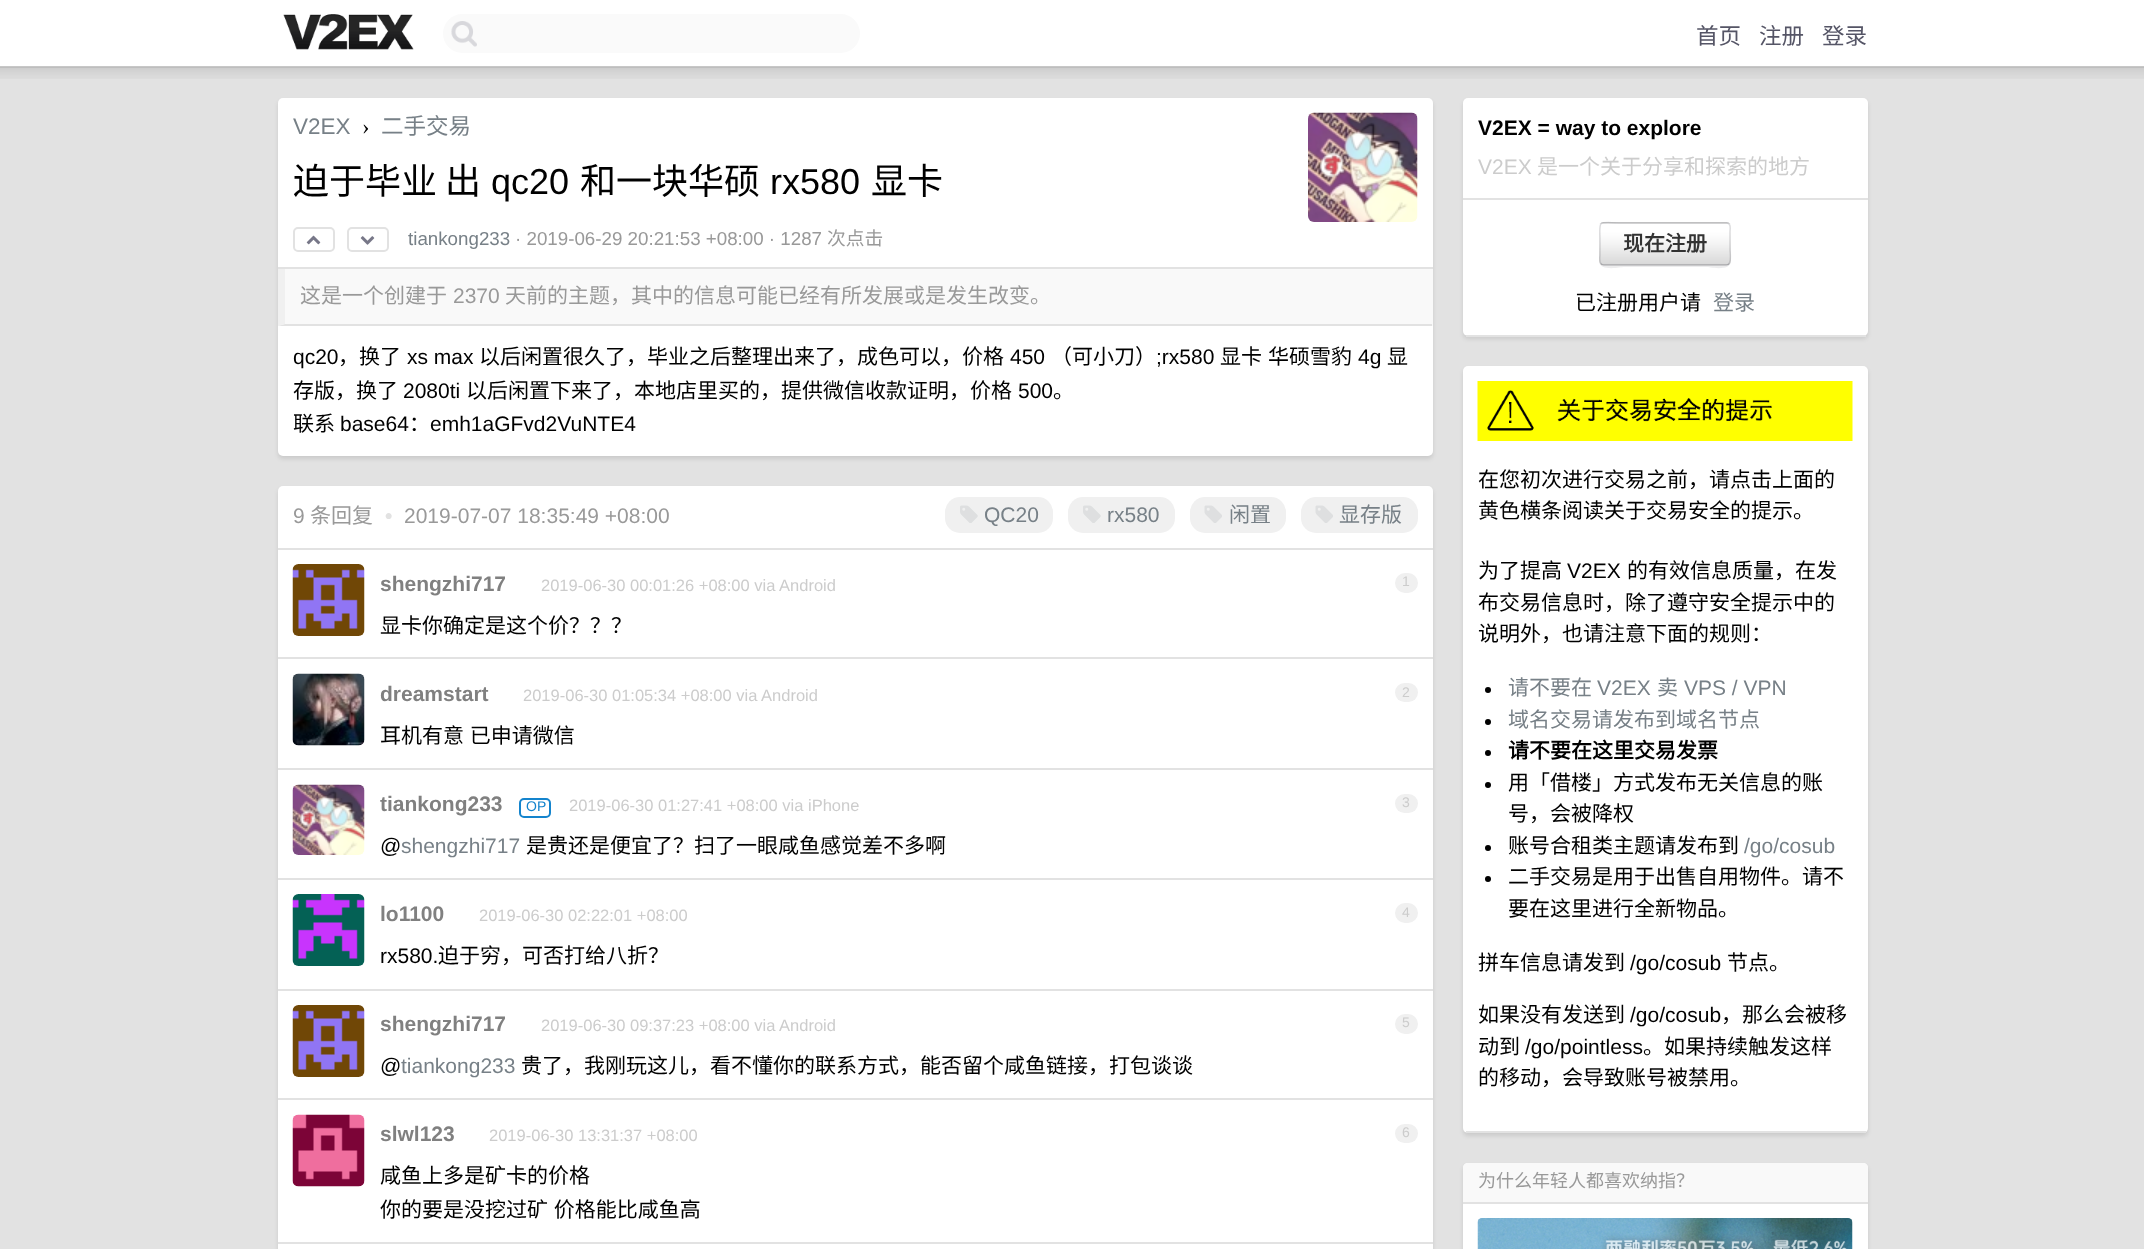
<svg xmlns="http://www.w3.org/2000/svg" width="2144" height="1249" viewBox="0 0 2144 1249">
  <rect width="100%" height="100%" fill="#fff"/>
  <path d="M0 66h2144v2H0z" fill="#c7c7c7"/>
  <image x="283" y="14" width="131" height="36" href="img/1.png"/>
  <rect x="443" y="14" width="417" height="39" rx="19.5" fill="#fafafa"/>
  <image x="451" y="21" width="26" height="26" href="img/2.png"/>
  <path d="M0 68h2144v1181H0z" fill="#e2e2e2"/>
  <image x="0" y="67" width="2144" height="12" href="img/3.png"/>
  <rect x="278" y="101" width="1155" height="358" rx="5" fill="#0000001a" filter="blur(2px)"/>
  <rect x="278" y="98" width="1155" height="358" rx="5" fill="#fff"/>
  <path d="M278 269h1155v57H278z" fill="#f9f9f9"/>
  <path d="M1432 326H278L285 324H1432Z" fill="#e2e2e2"/>
  <path d="M278 326V268H285V324Z" fill="#f0f0f0"/>
  <path d="M278 267h1155v2H278z" fill="#e2e2e2"/>
  <image x="1308" y="112" width="110" height="110" href="img/4.png"/>
  <rect x="294" y="228" width="40" height="23" rx="4" fill="none" stroke="#e2e2e2" stroke-width="2"/>
  <image x="306" y="235" width="15" height="10" href="img/5.png"/>
  <rect x="348" y="228" width="40" height="23" rx="4" fill="none" stroke="#e2e2e2" stroke-width="2"/>
  <image x="360" y="236" width="15" height="9" href="img/6.png"/>
  <rect x="278" y="489" width="1155" height="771" rx="5" fill="#0000001a" filter="blur(2px)"/>
  <rect x="278" y="486" width="1155" height="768" rx="5" fill="#fff"/>
  <path d="M278 548h1155v2H278z" fill="#e2e2e2"/>
  <rect x="945" y="497" width="108" height="36" rx="15" fill="#f0f0f0"/>
  <image x="960" y="505" width="18" height="18" href="img/7.png"/>
  <rect x="1068" y="497" width="107" height="36" rx="15" fill="#f0f0f0"/>
  <image x="1083" y="505" width="18" height="18" href="img/7.png"/>
  <rect x="1190" y="497" width="96" height="36" rx="15" fill="#f0f0f0"/>
  <image x="1204" y="505" width="18" height="18" href="img/8.png"/>
  <rect x="1301" y="497" width="117" height="36" rx="15" fill="#f0f0f0"/>
  <image x="1315" y="505" width="18" height="18" href="img/8.png"/>
  <path d="M278 657h1155v2H278z" fill="#e2e2e2"/>
  <image x="292" y="564" width="73" height="72" href="img/9.png"/>
  <rect x="1395" y="573" width="23" height="20" rx="10" fill="#f0f0f0"/>
  <path d="M278 768h1155v2H278z" fill="#e2e2e2"/>
  <image x="292" y="673" width="73" height="73" href="img/10.png"/>
  <rect x="1395" y="683" width="23" height="19" rx="9.5" fill="#f0f0f0"/>
  <path d="M278 878h1155v2H278z" fill="#e2e2e2"/>
  <image x="292" y="784" width="73" height="71" href="img/11.png"/>
  <rect x="520" y="799" width="30" height="18" rx="4" fill="none" stroke="#1484cd" stroke-width="2"/>
  <rect x="1395" y="794" width="23" height="19" rx="9.5" fill="#f0f0f0"/>
  <path d="M278 989h1155v2H278z" fill="#e2e2e2"/>
  <image x="292" y="894" width="73" height="72" href="img/12.png"/>
  <rect x="1395" y="903" width="23" height="20" rx="10" fill="#f0f0f0"/>
  <path d="M278 1098h1155v2H278z" fill="#e2e2e2"/>
  <image x="292" y="1005" width="73" height="72" href="img/9.png"/>
  <rect x="1395" y="1014" width="23" height="20" rx="10" fill="#f0f0f0"/>
  <path d="M278 1242h1155v2H278z" fill="#e2e2e2"/>
  <image x="292" y="1114" width="73" height="73" href="img/13.png"/>
  <rect x="1395" y="1124" width="23" height="19" rx="9.5" fill="#f0f0f0"/>
  <rect x="1463" y="101" width="405" height="238" rx="5" fill="#0000001a" filter="blur(2px)"/>
  <rect x="1463" y="98" width="405" height="238" rx="5" fill="#fff"/>
  <path d="M1466 335h400v2H1466z" fill="#e2e2e2"/>
  <path d="M1463 198h405v2H1463z" fill="#e2e2e2"/>
  <path d="M1599 261C1599 272 1621 267 1624 267H1706C1709 267 1731 272 1731 261C1731 263 1729 266 1726 266H1604C1601 266 1599 263 1599 261Z" fill="#ececed"/>
  <rect x="1599" y="222" width="132" height="44" rx="5" fill="#fff"/>
  <image x="1599" y="222" width="132" height="44" href="img/14.png"/>
  <path d="M1729 263.5C1728.5 264.5 1727.5 265 1726.5 265H1603.5C1602.5 265 1601.5 264.5 1601 263.5" fill="none" stroke="#50505a59" stroke-width="1.5"/>
  <path d="M1601 263.5C1599 261.5 1600 257 1600 255V244C1600 217.5 1595.5 223 1624 223H1726.5C1731.5 223 1730 229.5 1730 232V249.5C1730 252.5 1731.5 261 1729 263.5" fill="none" stroke="#50505a33" stroke-width="1.5"/>
  <rect x="1463" y="369" width="405" height="767" rx="5" fill="#0000001a" filter="blur(2px)"/>
  <rect x="1463" y="366" width="405" height="767" rx="5" fill="#fff"/>
  <path d="M1466 1131h400v2H1466z" fill="#e2e2e2"/>
  <image x="1477" y="381" width="376" height="60" href="img/15.png"/>
  <circle cx="1488" cy="690" r="3" fill="#000"/>
  <circle cx="1488" cy="722" r="3" fill="#000"/>
  <circle cx="1488" cy="753" r="3" fill="#000"/>
  <circle cx="1488" cy="785" r="3" fill="#000"/>
  <circle cx="1488" cy="848" r="3" fill="#000"/>
  <circle cx="1488" cy="879" r="3" fill="#000"/>
  <rect x="1463" y="1166" width="405" height="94" rx="5" fill="#0000001a" filter="blur(2px)"/>
  <rect x="1463" y="1163" width="405" height="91" rx="5" fill="#fff"/>
  <path d="M1468 1163H1863C1866 1163 1868 1165 1868 1168V1203H1463V1168C1463 1165 1465 1163 1468 1163Z" fill="#f9f9f9"/>
  <path d="M1463 1202h405v2H1463z" fill="#e2e2e2"/>
  <image x="1477" y="1218" width="376" height="31" href="img/16.png"/>
  <g font-family="Noto Sans CJK SC" font-size="22.5" fill="#556">
    <text x="1696" y="44">首页</text>
    <text x="1759" y="44">注册</text>
    <text x="1822" y="44">登录</text>
  </g>
  <text x="293" y="134" font-family="Liberation Sans" font-size="22.5" fill="#778087">V2EX</text>
  <text x="362" y="134" font-family="Liberation Serif" font-size="22.5" fill="#000">›</text>
  <text x="381" y="134" font-family="Noto Sans CJK SC" font-size="22.5" fill="#778087">二手交易</text>
  <text x="293" y="194" font-family="Noto Sans CJK SC" font-size="36" fill="#000">迫于毕业 出</text>
  <text x="491" y="194" font-family="Liberation Sans" font-size="36" fill="#000">qc20</text>
  <text x="580" y="194" font-family="Noto Sans CJK SC" font-size="36" fill="#000">和一块华硕</text>
  <text x="770" y="194" font-family="Liberation Sans" font-size="36" fill="#000">rx580</text>
  <text x="871" y="194" font-family="Noto Sans CJK SC" font-size="36" fill="#000">显卡</text>
  <text x="408" y="245" font-family="Liberation Sans" font-size="18.75" fill="#778087">tiankong233</text>
  <text x="515" y="245" font-family="Liberation Sans" font-size="18.75" fill="#999">· 2019-06-29 20:21:53 +08:00 · 1287</text>
  <text x="827" y="245" font-family="Noto Sans CJK SC" font-size="18.75" fill="#999">次点击</text>
  <text x="300" y="303" font-family="Noto Sans CJK SC" font-size="21" fill="#999">这是一个创建于</text>
  <text x="453" y="303" font-family="Liberation Sans" font-size="21" fill="#999">2370</text>
  <text x="505" y="303" font-family="Noto Sans CJK SC" font-size="21" fill="#999">天前的主题，其中的信息可能已经有所发展或是发生改变。</text>
  <text x="293" y="364" font-family="Liberation Sans" font-size="21" fill="#000">qc20</text>
  <text x="338" y="364" font-family="Noto Sans CJK SC" font-size="21" fill="#000">，换了</text>
  <text x="407" y="364" font-family="Liberation Sans" font-size="21" fill="#000">xs max</text>
  <text x="479" y="364" font-family="Noto Sans CJK SC" font-size="21" fill="#000">以后闲置很久了，毕业之后整理出来了，成色可以，价格</text>
  <text x="1010" y="364" font-family="Liberation Sans" font-size="21" fill="#000">450</text>
  <text x="1051" y="364" font-family="Noto Sans CJK SC" font-size="21" fill="#000">（可小刀）</text>
  <text x="1156" y="364" font-family="Liberation Sans" font-size="21" fill="#000">;rx580</text>
  <g font-family="Noto Sans CJK SC" font-size="21" fill="#000">
    <text x="1220" y="364">显卡</text>
    <text x="1268" y="364">华硕雪豹</text>
  </g>
  <text x="1358" y="364" font-family="Liberation Sans" font-size="21" fill="#000">4g</text>
  <g font-family="Noto Sans CJK SC" font-size="21" fill="#000">
    <text x="1387" y="364">显</text>
    <text x="293" y="398">存版，换了</text>
  </g>
  <text x="403" y="398" font-family="Liberation Sans" font-size="21" fill="#000">2080ti</text>
  <text x="466" y="398" font-family="Noto Sans CJK SC" font-size="21" fill="#000">以后闲置下来了，本地店里买的，提供微信收款证明，价格</text>
  <text x="1018" y="398" font-family="Liberation Sans" font-size="21" fill="#000">500</text>
  <g font-family="Noto Sans CJK SC" font-size="21" fill="#000">
    <text x="1053" y="398">。</text>
    <text x="293" y="431">联系</text>
  </g>
  <text x="340" y="431" font-family="Liberation Sans" font-size="21" fill="#000">base64</text>
  <text x="409" y="431" font-family="Noto Sans CJK SC" font-size="21" fill="#000">：</text>
  <text x="430" y="431" font-family="Liberation Sans" font-size="21" fill="#000">emh1aGFvd2VuNTE4</text>
  <text x="293" y="523" font-family="Liberation Sans" font-size="21" fill="#999">9</text>
  <text x="310" y="523" font-family="Noto Sans CJK SC" font-size="21" fill="#999">条回复</text>
  <text x="385" y="523" font-family="Liberation Sans" font-size="21" font-weight="bold" fill="#e2e2e2">•</text>
  <text x="404" y="523" font-family="Liberation Sans" font-size="21" fill="#999">2019-07-07 18:35:49 +08:00</text>
  <g font-family="Liberation Sans" font-size="21" fill="#778087">
    <text x="984" y="522">QC20</text>
    <text x="1107" y="522">rx580</text>
  </g>
  <g font-family="Noto Sans CJK SC" font-size="21" fill="#778087">
    <text x="1229" y="522">闲置</text>
    <text x="1339" y="522">显存版</text>
  </g>
  <text x="380" y="591" font-family="Liberation Sans" font-size="21" font-weight="bold" fill="#808080">shengzhi717</text>
  <text x="541" y="591" font-family="Liberation Sans" font-size="16.5" fill="#ccc">2019-06-30 00:01:26 +08:00 via Android</text>
  <text x="1402" y="586" font-family="Liberation Sans" font-size="14" fill="#ccc">1</text>
  <text x="380" y="633" font-family="Noto Sans CJK SC" font-size="21" fill="#000">显卡你确定是这个价？？？</text>
  <text x="380" y="701" font-family="Liberation Sans" font-size="21" font-weight="bold" fill="#808080">dreamstart</text>
  <text x="523" y="701" font-family="Liberation Sans" font-size="16.5" fill="#ccc">2019-06-30 01:05:34 +08:00 via Android</text>
  <text x="1402" y="697" font-family="Liberation Sans" font-size="14" fill="#ccc">2</text>
  <text x="380" y="743" word-spacing="1" font-family="Noto Sans CJK SC" font-size="21" fill="#000">耳机有意 已申请微信</text>
  <text x="380" y="811" font-family="Liberation Sans" font-size="21" font-weight="bold" fill="#808080">tiankong233</text>
  <text x="526" y="811" font-family="Liberation Sans" font-size="14" fill="#1484cd">OP</text>
  <text x="569" y="811" font-family="Liberation Sans" font-size="16.5" fill="#ccc">2019-06-30 01:27:41 +08:00 via iPhone</text>
  <text x="1402" y="807" font-family="Liberation Sans" font-size="14" fill="#ccc">3</text>
  <text x="380" y="853" font-family="Liberation Sans" font-size="21" fill="#000">@</text>
  <text x="401" y="853" font-family="Liberation Sans" font-size="21" fill="#778087">shengzhi717</text>
  <text x="526" y="853" font-family="Noto Sans CJK SC" font-size="21" fill="#000">是贵还是便宜了？扫了一眼咸鱼感觉差不多啊</text>
  <text x="380" y="921" font-family="Liberation Sans" font-size="21" font-weight="bold" fill="#808080">lo1100</text>
  <text x="479" y="921" font-family="Liberation Sans" font-size="16.5" fill="#ccc">2019-06-30 02:22:01 +08:00</text>
  <text x="1402" y="917" font-family="Liberation Sans" font-size="14" fill="#ccc">4</text>
  <text x="380" y="963" font-family="Liberation Sans" font-size="21" fill="#000">rx580.</text>
  <text x="438" y="963" font-family="Noto Sans CJK SC" font-size="21" fill="#000">迫于穷，可否打给八折？</text>
  <text x="380" y="1031" font-family="Liberation Sans" font-size="21" font-weight="bold" fill="#808080">shengzhi717</text>
  <text x="541" y="1031" font-family="Liberation Sans" font-size="16.5" fill="#ccc">2019-06-30 09:37:23 +08:00 via Android</text>
  <text x="1402" y="1027" font-family="Liberation Sans" font-size="14" fill="#ccc">5</text>
  <text x="380" y="1073" font-family="Liberation Sans" font-size="21" fill="#000">@</text>
  <text x="401" y="1073" font-family="Liberation Sans" font-size="21" fill="#778087">tiankong233</text>
  <text x="521" y="1073" font-family="Noto Sans CJK SC" font-size="21" fill="#000">贵了，我刚玩这儿，看不懂你的联系方式，能否留个咸鱼链接，打包谈谈</text>
  <text x="380" y="1141" font-family="Liberation Sans" font-size="21" font-weight="bold" fill="#808080">slwl123</text>
  <text x="489" y="1141" font-family="Liberation Sans" font-size="16.5" fill="#ccc">2019-06-30 13:31:37 +08:00</text>
  <text x="1402" y="1137" font-family="Liberation Sans" font-size="14" fill="#ccc">6</text>
  <g font-family="Noto Sans CJK SC" font-size="21" fill="#000">
    <text x="380" y="1183">咸鱼上多是矿卡的价格</text>
    <text x="380" y="1217" word-spacing="1">你的要是没挖过矿 价格能比咸鱼高</text>
  </g>
  <text x="1478" y="135" font-family="Liberation Sans" font-size="21" font-weight="bold" fill="#000">V2EX = way to explore</text>
  <text x="1478" y="174" font-family="Liberation Sans" font-size="21" fill="#ccc">V2EX</text>
  <text x="1537" y="174" font-family="Noto Sans CJK SC" font-size="21" fill="#ccc">是一个关于分享和探索的地方</text>
  <text x="1623" y="251" font-family="Noto Sans CJK SC" font-size="21" font-weight="bold" fill="#333">现在注册</text>
  <text x="1575" y="310" font-family="Noto Sans CJK SC" font-size="21" fill="#000">已注册用户请</text>
  <text x="1713" y="310" font-family="Noto Sans CJK SC" font-size="21" fill="#778087">登录</text>
  <g font-family="Noto Sans CJK SC" font-size="21" fill="#000">
    <text x="1478" y="487">在您初次进行交易之前，请点击上面的</text>
    <text x="1478" y="518">黄色横条阅读关于交易安全的提示。</text>
    <text x="1478" y="578">为了提高</text>
  </g>
  <text x="1567" y="578" font-family="Liberation Sans" font-size="21" fill="#000">V2EX</text>
  <g font-family="Noto Sans CJK SC" font-size="21" fill="#000">
    <text x="1627" y="578">的有效信息质量，在发</text>
    <text x="1478" y="610">布交易信息时，除了遵守安全提示中的</text>
    <text x="1478" y="641">说明外，也请注意下面的规则：</text>
  </g>
  <text x="1508" y="695" font-family="Noto Sans CJK SC" font-size="21" fill="#778087">请不要在</text>
  <text x="1597" y="695" font-family="Liberation Sans" font-size="21" fill="#778087">V2EX</text>
  <text x="1657" y="695" font-family="Noto Sans CJK SC" font-size="21" fill="#778087">卖</text>
  <text x="1684" y="695" font-family="Liberation Sans" font-size="21" fill="#778087">VPS / VPN</text>
  <text x="1508" y="727" font-family="Noto Sans CJK SC" font-size="21" fill="#778087">域名交易请发布到域名节点</text>
  <text x="1508" y="758" font-family="Noto Sans CJK SC" font-size="21" font-weight="bold" fill="#000">请不要在这里交易发票</text>
  <g font-family="Noto Sans CJK SC" font-size="21" fill="#000">
    <text x="1508" y="790">用「借楼」方式发布无关信息的账</text>
    <text x="1508" y="821">号，会被降权</text>
    <text x="1508" y="853">账号合租类主题请发布到</text>
  </g>
  <text x="1744" y="853" font-family="Liberation Sans" font-size="21" fill="#778087">/go/cosub</text>
  <g font-family="Noto Sans CJK SC" font-size="21" fill="#000">
    <text x="1508" y="884">二手交易是用于出售自用物件。请不</text>
    <text x="1508" y="916">要在这里进行全新物品。</text>
    <text x="1478" y="970">拼车信息请发到</text>
  </g>
  <text x="1630" y="970" font-family="Liberation Sans" font-size="21" fill="#000">/go/cosub</text>
  <g font-family="Noto Sans CJK SC" font-size="21" fill="#000">
    <text x="1727" y="970">节点。</text>
    <text x="1478" y="1022">如果没有发送到</text>
  </g>
  <text x="1630" y="1022" font-family="Liberation Sans" font-size="21" fill="#000">/go/cosub</text>
  <g font-family="Noto Sans CJK SC" font-size="21" fill="#000">
    <text x="1721" y="1022">，那么会被移</text>
    <text x="1478" y="1054">动到</text>
  </g>
  <text x="1525" y="1054" font-family="Liberation Sans" font-size="21" fill="#000">/go/pointless</text>
  <g font-family="Noto Sans CJK SC" font-size="21" fill="#000">
    <text x="1643" y="1054">。如果持续触发这样</text>
    <text x="1478" y="1085">的移动，会导致账号被禁用。</text>
  </g>
  <text x="1478" y="1187" font-family="Noto Sans CJK SC" font-size="18" fill="#999">为什么年轻人都喜欢纳指？</text>
</svg>
